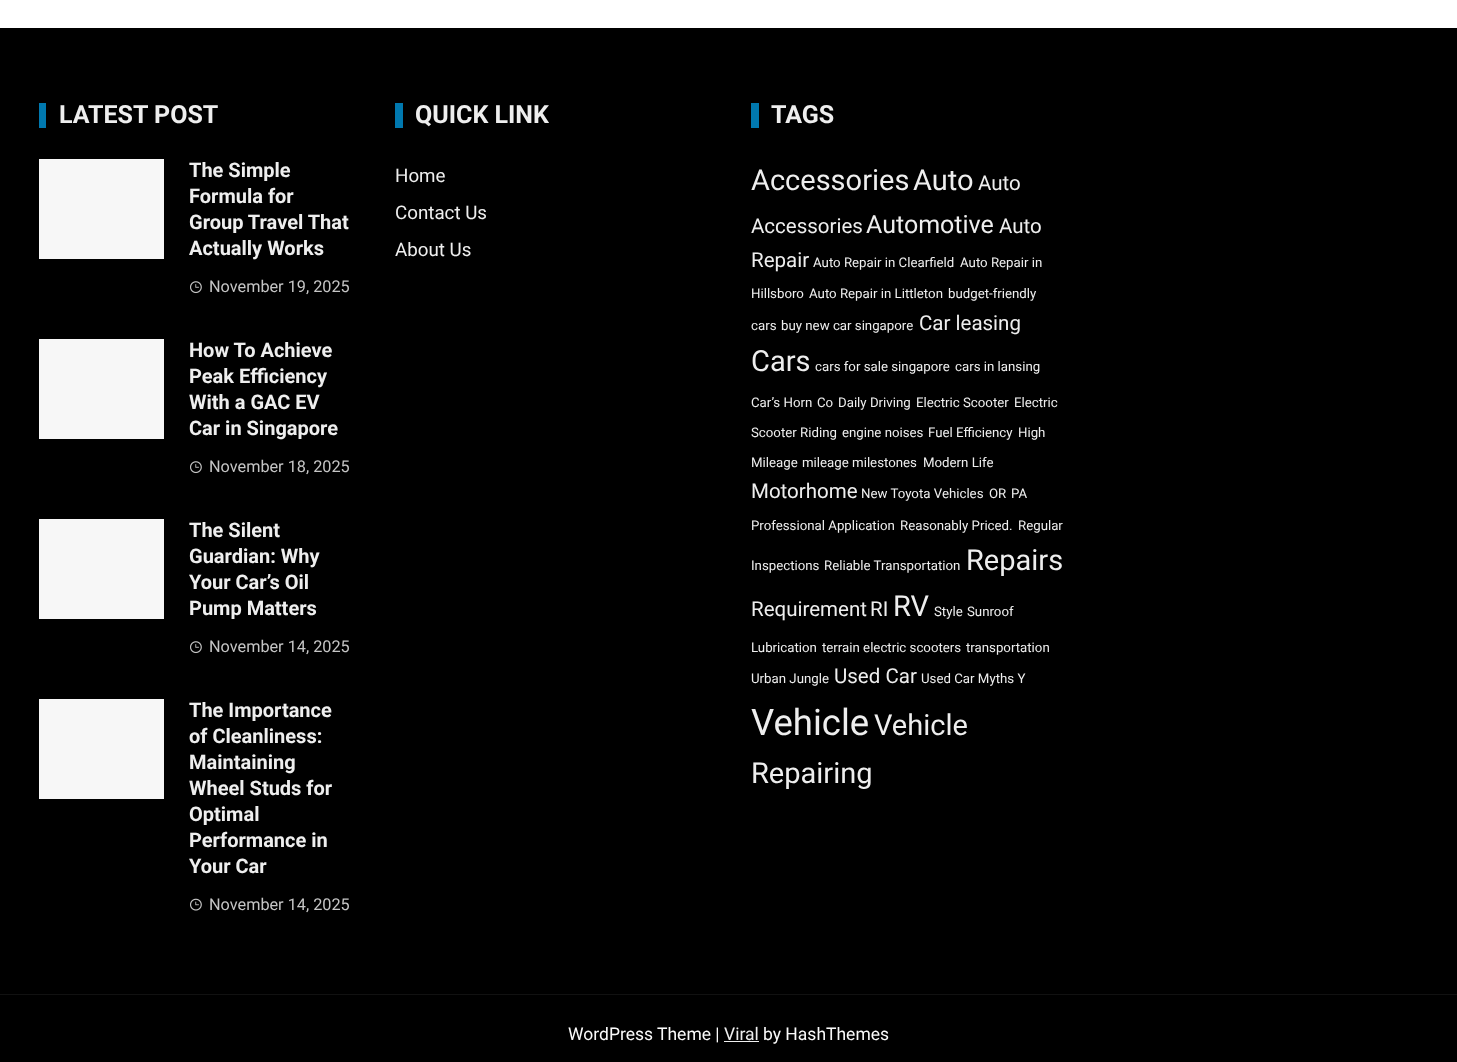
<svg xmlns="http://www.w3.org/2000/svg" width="1457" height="1062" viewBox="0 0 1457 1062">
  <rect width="100%" height="100%" fill="#fff"/>
  <path d="M0 28h1457v1034H0z" fill="#000"/>
  <path d="M39 103h7v25H39z" fill="#0078af"/>
  <path d="M39 159h125v100H39z" fill="#f7f7f7"/>
  <image x="190" y="281" width="12" height="13" href="img/1.png"/>
  <path d="M39 339h125v100H39z" fill="#f7f7f7"/>
  <image x="190" y="461" width="12" height="13" href="img/1.png"/>
  <path d="M39 519h125v100H39z" fill="#f7f7f7"/>
  <image x="190" y="641" width="12" height="13" href="img/1.png"/>
  <path d="M39 699h125v100H39z" fill="#f7f7f7"/>
  <image x="190" y="898" width="12" height="13" href="img/2.png"/>
  <path d="M395 103h8v25H395z" fill="#0078af"/>
  <path d="M751 103h8v25H751z" fill="#0078af"/>
  <path d="M0 994h1457v1H0z" fill="#111"/>
  <path d="M724 1041h35v1H724z" fill="#f0f0f0"/>
  <text x="59" y="123" font-family="Roboto" font-size="25" font-weight="bold" fill="#eee">LATEST POST</text>
  <g font-family="Roboto" font-size="20" font-weight="bold" fill="#eee">
    <text x="189" y="177">The Simple</text>
    <text x="189" y="203">Formula for</text>
    <text x="189" y="229">Group Travel That</text>
    <text x="189" y="255">Actually Works</text>
  </g>
  <text x="209" y="292" font-family="Roboto" font-size="16.25" fill="#c5c5c5">November 19, 2025</text>
  <g font-family="Roboto" font-size="20" font-weight="bold" fill="#eee">
    <text x="189" y="357">How To Achieve</text>
    <text x="189" y="383">Peak Efficiency</text>
    <text x="189" y="409">With a GAC EV</text>
    <text x="189" y="435">Car in Singapore</text>
  </g>
  <text x="209" y="472" font-family="Roboto" font-size="16.25" fill="#c5c5c5">November 18, 2025</text>
  <g font-family="Roboto" font-size="20" font-weight="bold" fill="#eee">
    <text x="189" y="537">The Silent</text>
    <text x="189" y="563">Guardian: Why</text>
    <text x="189" y="589">Your Car’s Oil</text>
    <text x="189" y="615">Pump Matters</text>
  </g>
  <text x="209" y="652" font-family="Roboto" font-size="16.25" fill="#c5c5c5">November 14, 2025</text>
  <g font-family="Roboto" font-size="20" font-weight="bold" fill="#eee">
    <text x="189" y="717">The Importance</text>
    <text x="189" y="743">of Cleanliness:</text>
    <text x="189" y="769">Maintaining</text>
    <text x="189" y="795">Wheel Studs for</text>
    <text x="189" y="821">Optimal</text>
    <text x="189" y="847">Performance in</text>
    <text x="189" y="873">Your Car</text>
  </g>
  <text x="209" y="910" font-family="Roboto" font-size="16.25" fill="#c5c5c5">November 14, 2025</text>
  <text x="415" y="123" font-family="Roboto" font-size="25" font-weight="bold" fill="#eee">QUICK LINK</text>
  <g font-family="Roboto" font-size="18.75" fill="#eee">
    <text x="395" y="182">Home</text>
    <text x="395" y="219">Contact Us</text>
    <text x="395" y="256">About Us</text>
  </g>
  <text x="771" y="123" font-family="Roboto" font-size="25" font-weight="bold" fill="#eee">TAGS</text>
  <g font-family="Roboto" font-size="29" fill="#eee">
    <text x="751" y="190">Accessories</text>
    <text x="913" y="190">Auto</text>
  </g>
  <g font-family="Roboto" font-size="20.5" fill="#eee">
    <text x="978" y="190">Auto</text>
    <text x="751" y="233">Accessories</text>
  </g>
  <text x="866" y="233" font-family="Roboto" font-size="25" fill="#eee">Automotive</text>
  <g font-family="Roboto" font-size="20.5" fill="#eee">
    <text x="999" y="233">Auto</text>
    <text x="751" y="267">Repair</text>
  </g>
  <g font-family="Roboto" font-size="13.25" fill="#eee">
    <text x="813" y="267">Auto Repair in Clearfield</text>
    <text x="960" y="267">Auto Repair in</text>
    <text x="751" y="298">Hillsboro</text>
    <text x="809" y="298">Auto Repair in Littleton</text>
    <text x="948" y="298">budget-friendly</text>
    <text x="751" y="330">cars</text>
    <text x="781" y="330">buy new car singapore</text>
  </g>
  <text x="919" y="330" font-family="Roboto" font-size="20.5" fill="#eee">Car leasing</text>
  <text x="751" y="371" font-family="Roboto" font-size="29" fill="#eee">Cars</text>
  <g font-family="Roboto" font-size="13.25" fill="#eee">
    <text x="815" y="371">cars for sale singapore</text>
    <text x="955" y="371">cars in lansing</text>
    <text x="751" y="407">Car’s Horn</text>
    <text x="817" y="407">Co</text>
    <text x="838" y="407">Daily Driving</text>
    <text x="916" y="407">Electric Scooter</text>
    <text x="1014" y="407">Electric</text>
    <text x="751" y="437">Scooter Riding</text>
    <text x="842" y="437">engine noises</text>
    <text x="928" y="437">Fuel Efficiency</text>
    <text x="1018" y="437">High</text>
    <text x="751" y="467">Mileage</text>
    <text x="802" y="467">mileage milestones</text>
    <text x="923" y="467">Modern Life</text>
  </g>
  <text x="751" y="498" font-family="Roboto" font-size="20.5" fill="#eee">Motorhome</text>
  <g font-family="Roboto" font-size="13.25" fill="#eee">
    <text x="861" y="498">New Toyota Vehicles</text>
    <text x="989" y="498">OR</text>
    <text x="1011" y="498">PA</text>
    <text x="751" y="530">Professional Application</text>
    <text x="900" y="530">Reasonably Priced.</text>
    <text x="1018" y="530">Regular</text>
    <text x="751" y="570">Inspections</text>
    <text x="824" y="570">Reliable Transportation</text>
  </g>
  <text x="966" y="570" font-family="Roboto" font-size="29" fill="#eee">Repairs</text>
  <g font-family="Roboto" font-size="20.5" fill="#eee">
    <text x="751" y="616">Requirement</text>
    <text x="870" y="616">RI</text>
  </g>
  <text x="893" y="616" font-family="Roboto" font-size="29" fill="#eee">RV</text>
  <g font-family="Roboto" font-size="13.25" fill="#eee">
    <text x="934" y="616">Style</text>
    <text x="967" y="616">Sunroof</text>
    <text x="751" y="652">Lubrication</text>
    <text x="822" y="652">terrain electric scooters</text>
    <text x="966" y="652">transportation</text>
    <text x="751" y="683">Urban Jungle</text>
  </g>
  <text x="834" y="683" font-family="Roboto" font-size="20.5" fill="#eee">Used Car</text>
  <text x="921" y="683" font-family="Roboto" font-size="13.25" fill="#eee">Used Car Myths Y</text>
  <text x="751" y="735" font-family="Roboto" font-size="36.5" fill="#eee">Vehicle</text>
  <g font-family="Roboto" font-size="29" fill="#eee">
    <text x="874" y="735">Vehicle</text>
    <text x="751" y="783">Repairing</text>
  </g>
  <text x="568" y="1040" font-family="Roboto" font-size="17.5" fill="#fafafa">WordPress Theme |</text>
  <text x="724" y="1040" font-family="Roboto" font-size="17.5" fill="#eee">Viral</text>
  <text x="763" y="1040" font-family="Roboto" font-size="17.5" fill="#fafafa">by HashThemes</text>
</svg>
